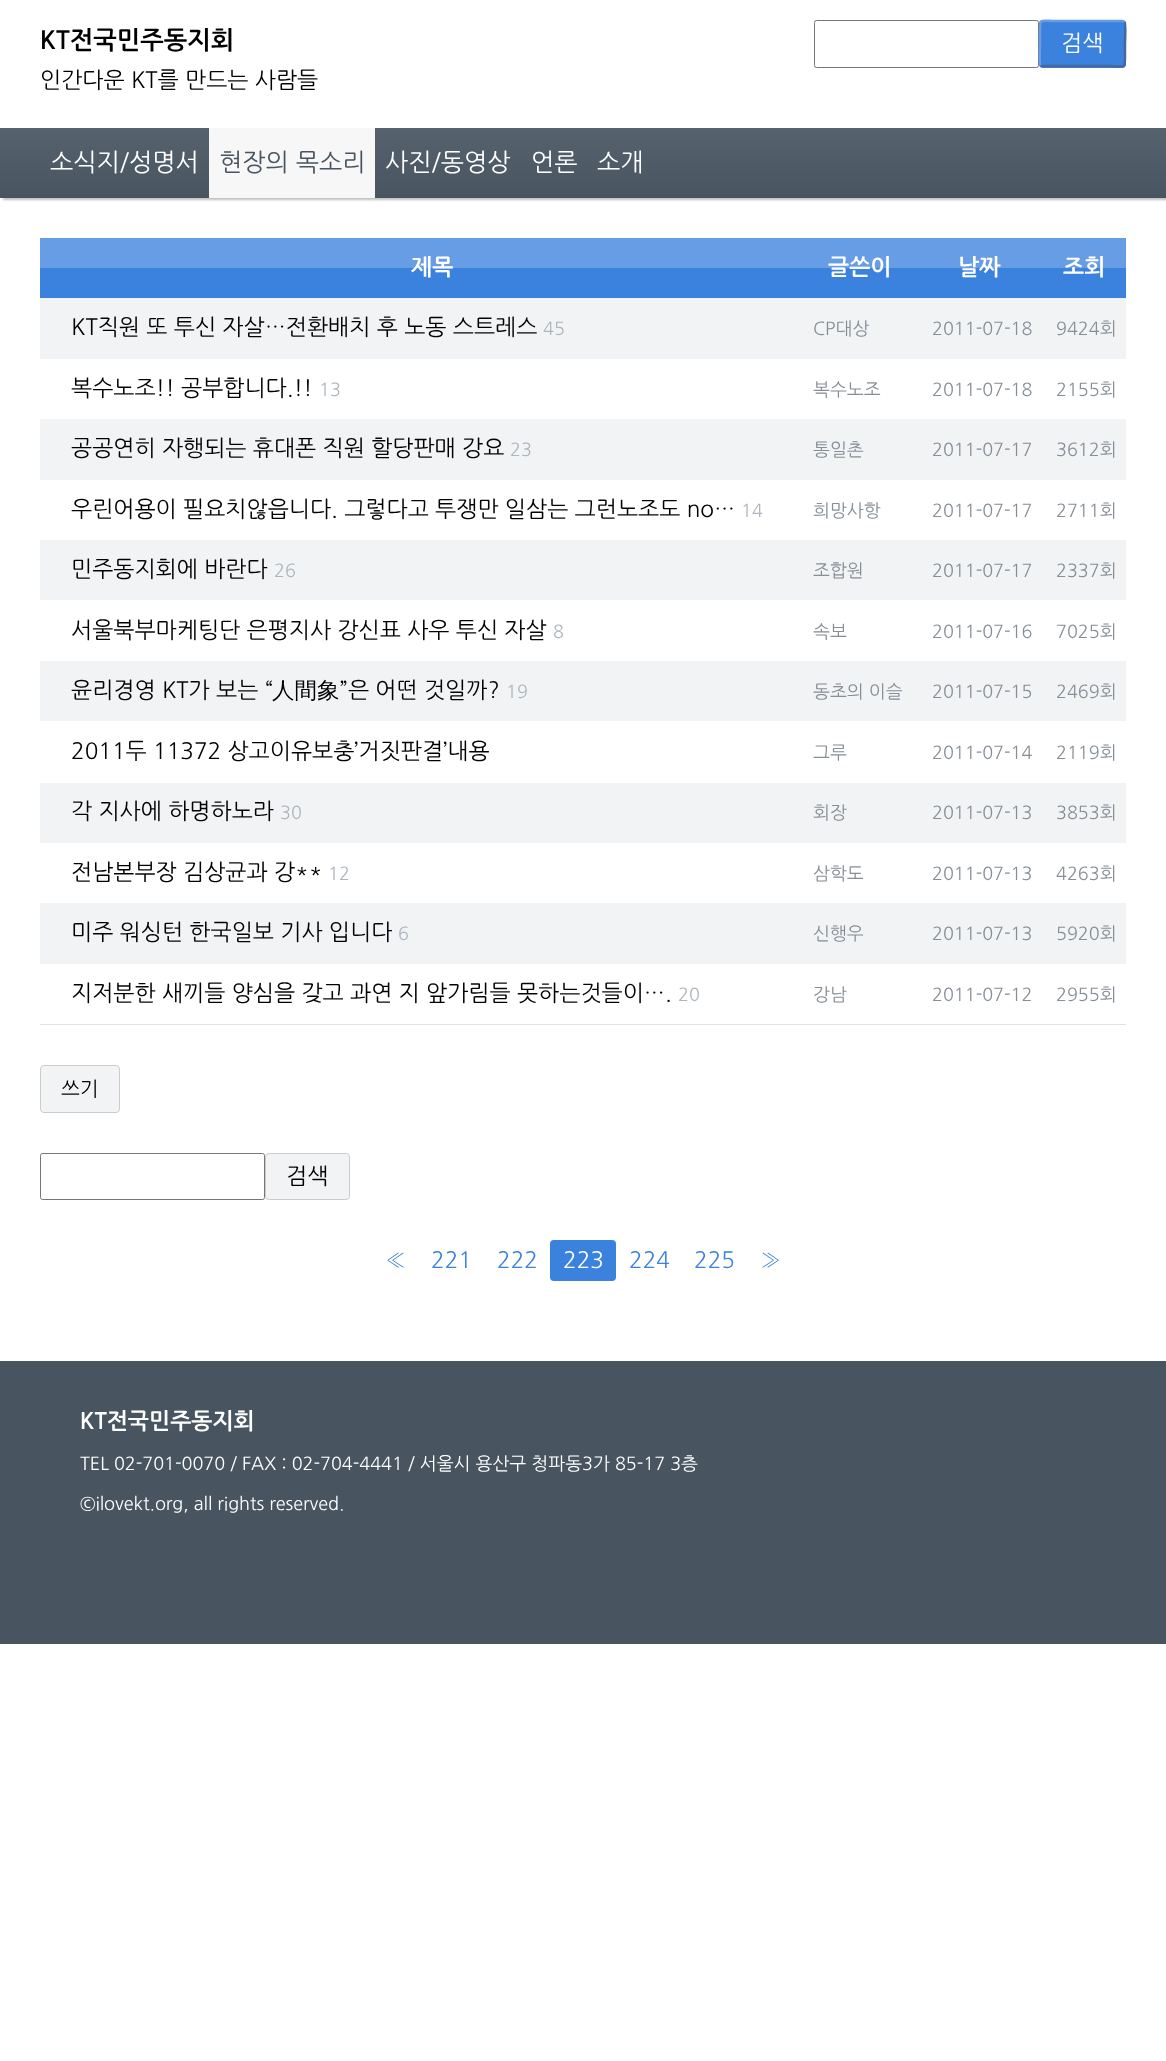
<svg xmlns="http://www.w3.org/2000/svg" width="1166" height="2061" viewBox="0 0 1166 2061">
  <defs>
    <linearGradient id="g1" gradientUnits="userSpaceOnUse" x1="583" y1="198" x2="583" y2="128"><stop offset="0" stop-color="#485561"/><stop offset="1" stop-color="#56636f"/></linearGradient>
  </defs>
  <rect width="100%" height="100%" fill="#fff"/>
  <rect x="814.5" y="20.5" width="224" height="47" rx="2" fill="none" stroke="#767676"/>
  <rect x="1039" y="20" width="87" height="48" rx="4" fill="#3b81de"/>
  <path d="M1124.5 22C1126 24 1125 40.5 1125 44V57C1125 70 1124.5 66 1109 66H1042.5L1040.5 65.5" fill="none" stroke="#456999" stroke-width="2.5"/>
  <path d="M1040.5 65.5C1039 63.5 1040 47 1040 44V30.5C1040 17.5 1040.5 21 1056 21H1122.5L1124.5 22" fill="none" stroke="#679de5" stroke-width="2.5"/>
  <path d="M3 130h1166v70H3z" fill="#00000040" filter="blur(1px)"/>
  <path d="M0 128h1166v70H0z" fill="url(#g1)"/>
  <path d="M209 128h166v70H209z" fill="#f7f7f7"/>
  <path d="M40 1024h1086v1H40z" fill="#dee2e6"/>
  <path d="M40 268h1086v30H40z" fill="#3b81de"/>
  <path d="M40 238h1086v30H40z" fill="#679de5"/>
  <path d="M40 298h1086v61H40z" fill="#f1f3f5"/>
  <path d="M40 419h1086v61H40z" fill="#f1f3f5"/>
  <path d="M40 540h1086v60H40z" fill="#f1f3f5"/>
  <path d="M40 661h1086v60H40z" fill="#f1f3f5"/>
  <path d="M40 783h1086v60H40z" fill="#f1f3f5"/>
  <path d="M40 903h1086v61H40z" fill="#f1f3f5"/>
  <rect x="40.5" y="1065.5" width="79" height="47" rx="3.5" fill="#f1f3f5" stroke="#ccc"/>
  <rect x="40.5" y="1153.5" width="224" height="46" rx="2" fill="none" stroke="#767676"/>
  <rect x="265.5" y="1153.5" width="84" height="46" rx="3.5" fill="#f1f3f5" stroke="#ccc"/>
  <rect x="550" y="1240" width="66" height="41" rx="4" fill="#3b81de"/>
  <path d="M0 1361h1166v283H0z" fill="#485561"/>
  <text x="40" y="49" font-family="NanumGothic" font-size="25" font-weight="bold" fill="#000">KT전국민주동지회</text>
  <text x="40" y="88" font-family="NanumGothic" font-size="22.5" fill="#000">인간다운 KT를 만드는 사람들</text>
  <text x="1061" y="51" font-family="NanumGothic" font-size="22.5" fill="#fff">검색</text>
  <text x="50" y="171" font-family="NanumGothic" font-size="24.75" fill="#fff">소식지/성명서</text>
  <text x="219" y="171" font-family="NanumGothic" font-size="24.75" fill="#485561">현장의 목소리</text>
  <g font-family="NanumGothic" font-size="24.75" fill="#fff">
    <text x="385" y="171">사진/동영상</text>
    <text x="531" y="171">언론</text>
    <text x="597" y="171">소개</text>
  </g>
  <g font-family="NanumGothic" font-size="22.5" font-weight="bold" fill="#fff">
    <text x="411" y="275">제목</text>
    <text x="828" y="275">글쓴이</text>
    <text x="958" y="275">날짜</text>
    <text x="1063" y="275">조회</text>
  </g>
  <text x="71" y="335" font-family="NanumGothic" font-size="22.5" fill="#000">KT직원 또 투신 자살…전환배치 후 노동 스트레스</text>
  <text x="543" y="335" font-family="NanumGothic" font-size="18" fill="#adb5bd">45</text>
  <g font-family="NanumGothic" font-size="18" fill="#868e96">
    <text x="813" y="335">CP대상</text>
    <text x="932" y="335">2011-07-18</text>
    <text x="1056" y="335">9424회</text>
  </g>
  <text x="71" y="396" font-family="NanumGothic" font-size="22.5" fill="#000">복수노조!! 공부합니다.!!</text>
  <text x="319" y="396" font-family="NanumGothic" font-size="18" fill="#adb5bd">13</text>
  <g font-family="NanumGothic" font-size="18" fill="#868e96">
    <text x="813" y="396">복수노조</text>
    <text x="932" y="396">2011-07-18</text>
    <text x="1056" y="396">2155회</text>
  </g>
  <text x="71" y="456" font-family="NanumGothic" font-size="22.5" fill="#000">공공연히 자행되는 휴대폰 직원 할당판매 강요</text>
  <text x="510" y="456" font-family="NanumGothic" font-size="18" fill="#adb5bd">23</text>
  <g font-family="NanumGothic" font-size="18" fill="#868e96">
    <text x="813" y="456">통일촌</text>
    <text x="932" y="456">2011-07-17</text>
    <text x="1056" y="456">3612회</text>
  </g>
  <text x="71" y="517" font-family="NanumGothic" font-size="22.5" fill="#000">우린어용이 필요치않읍니다. 그렇다고 투쟁만 일삼는 그런노조도 no…</text>
  <text x="741" y="517" font-family="NanumGothic" font-size="18" fill="#adb5bd">14</text>
  <g font-family="NanumGothic" font-size="18" fill="#868e96">
    <text x="813" y="517">희망사항</text>
    <text x="932" y="517">2011-07-17</text>
    <text x="1056" y="517">2711회</text>
  </g>
  <text x="71" y="577" font-family="NanumGothic" font-size="22.5" fill="#000">민주동지회에 바란다</text>
  <text x="274" y="577" font-family="NanumGothic" font-size="18" fill="#adb5bd">26</text>
  <g font-family="NanumGothic" font-size="18" fill="#868e96">
    <text x="813" y="577">조합원</text>
    <text x="932" y="577">2011-07-17</text>
    <text x="1056" y="577">2337회</text>
  </g>
  <text x="71" y="638" font-family="NanumGothic" font-size="22.5" fill="#000">서울북부마케팅단 은평지사 강신표 사우 투신 자살</text>
  <text x="553" y="638" font-family="NanumGothic" font-size="18" fill="#adb5bd">8</text>
  <g font-family="NanumGothic" font-size="18" fill="#868e96">
    <text x="813" y="638">속보</text>
    <text x="932" y="638">2011-07-16</text>
    <text x="1056" y="638">7025회</text>
  </g>
  <text x="71" y="698" font-family="NanumGothic" font-size="22.5" fill="#000">윤리경영 KT가 보는 “</text>
  <text x="272" y="698" font-family="WenQuanYi Zen Hei" font-size="22.5" font-weight="500" fill="#000">人間象</text>
  <text x="340" y="698" font-family="NanumGothic" font-size="22.5" fill="#000">”은 어떤 것일까?</text>
  <text x="506" y="698" font-family="NanumGothic" font-size="18" fill="#adb5bd">19</text>
  <g font-family="NanumGothic" font-size="18" fill="#868e96">
    <text x="813" y="698">동초의 이슬</text>
    <text x="932" y="698">2011-07-15</text>
    <text x="1056" y="698">2469회</text>
  </g>
  <text x="71" y="759" font-family="NanumGothic" font-size="22.5" fill="#000">2011두 11372 상고이유보충’거짓판결’내용</text>
  <g font-family="NanumGothic" font-size="18" fill="#868e96">
    <text x="813" y="759">그루</text>
    <text x="932" y="759">2011-07-14</text>
    <text x="1056" y="759">2119회</text>
  </g>
  <text x="71" y="819" font-family="NanumGothic" font-size="22.5" fill="#000">각 지사에 하명하노라</text>
  <text x="280" y="819" font-family="NanumGothic" font-size="18" fill="#adb5bd">30</text>
  <g font-family="NanumGothic" font-size="18" fill="#868e96">
    <text x="813" y="819">회장</text>
    <text x="932" y="819">2011-07-13</text>
    <text x="1056" y="819">3853회</text>
  </g>
  <text x="71" y="880" font-family="NanumGothic" font-size="22.5" fill="#000">전남본부장 김상균과 강**</text>
  <text x="328" y="880" font-family="NanumGothic" font-size="18" fill="#adb5bd">12</text>
  <g font-family="NanumGothic" font-size="18" fill="#868e96">
    <text x="813" y="880">삼학도</text>
    <text x="932" y="880">2011-07-13</text>
    <text x="1056" y="880">4263회</text>
  </g>
  <text x="71" y="940" font-family="NanumGothic" font-size="22.5" fill="#000">미주 워싱턴 한국일보 기사 입니다</text>
  <text x="398" y="940" font-family="NanumGothic" font-size="18" fill="#adb5bd">6</text>
  <g font-family="NanumGothic" font-size="18" fill="#868e96">
    <text x="813" y="940">신행우</text>
    <text x="932" y="940">2011-07-13</text>
    <text x="1056" y="940">5920회</text>
  </g>
  <text x="71" y="1001" font-family="NanumGothic" font-size="22.5" fill="#000">지저분한 새끼들 양심을 갖고 과연 지 앞가림들 못하는것들이….</text>
  <text x="678" y="1001" font-family="NanumGothic" font-size="18" fill="#adb5bd">20</text>
  <g font-family="NanumGothic" font-size="18" fill="#868e96">
    <text x="813" y="1001">강남</text>
    <text x="932" y="1001">2011-07-12</text>
    <text x="1056" y="1001">2955회</text>
  </g>
  <text x="61" y="1096" font-family="NanumGothic" font-size="20" fill="#000">쓰기</text>
  <text x="286" y="1184" font-family="NanumGothic" font-size="22.5" fill="#000">검색</text>
  <g font-family="NanumGothic" font-size="22.5" fill="#3b81de">
    <text x="385" y="1268">«</text>
    <text x="431" y="1268">221</text>
    <text x="497" y="1268">222</text>
  </g>
  <text x="563" y="1268" font-family="NanumGothic" font-size="22.5" fill="#fff">223</text>
  <g font-family="NanumGothic" font-size="22.5" fill="#3b81de">
    <text x="629" y="1268">224</text>
    <text x="694" y="1268">225</text>
    <text x="760" y="1268">»</text>
  </g>
  <text x="80" y="1429" font-family="NanumGothic" font-size="22.5" font-weight="bold" fill="#fff">KT전국민주동지회</text>
  <g font-family="NanumGothic" font-size="18" fill="#fff">
    <text x="80" y="1470">TEL 02-701-0070 / FAX : 02-704-4441 / 서울시 용산구 청파동3가 85-17 3층</text>
    <text x="80" y="1510">©ilovekt.org, all rights reserved.</text>
  </g>
</svg>
